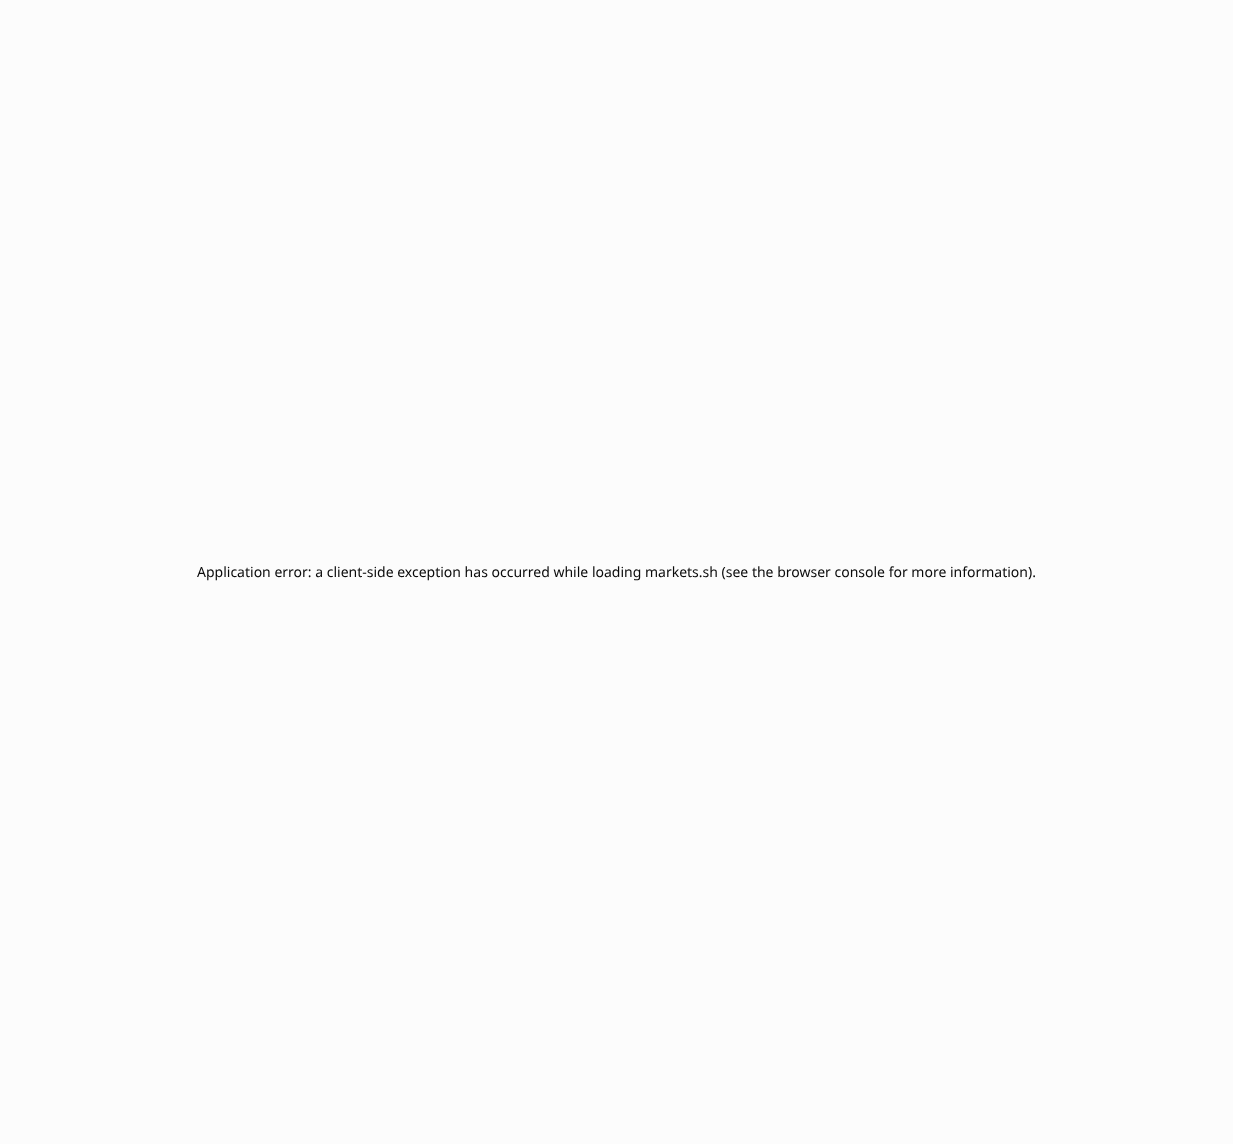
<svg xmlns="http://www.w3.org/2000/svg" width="1233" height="1144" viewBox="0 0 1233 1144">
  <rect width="100%" height="100%" fill="#fcfcfc"/>
  <text x="197" y="577" font-family="Noto Sans" font-size="14" fill="#0a0a0a">Application error: a client-side exception has occurred while loading markets.sh (see the browser console for more information).</text>
</svg>
